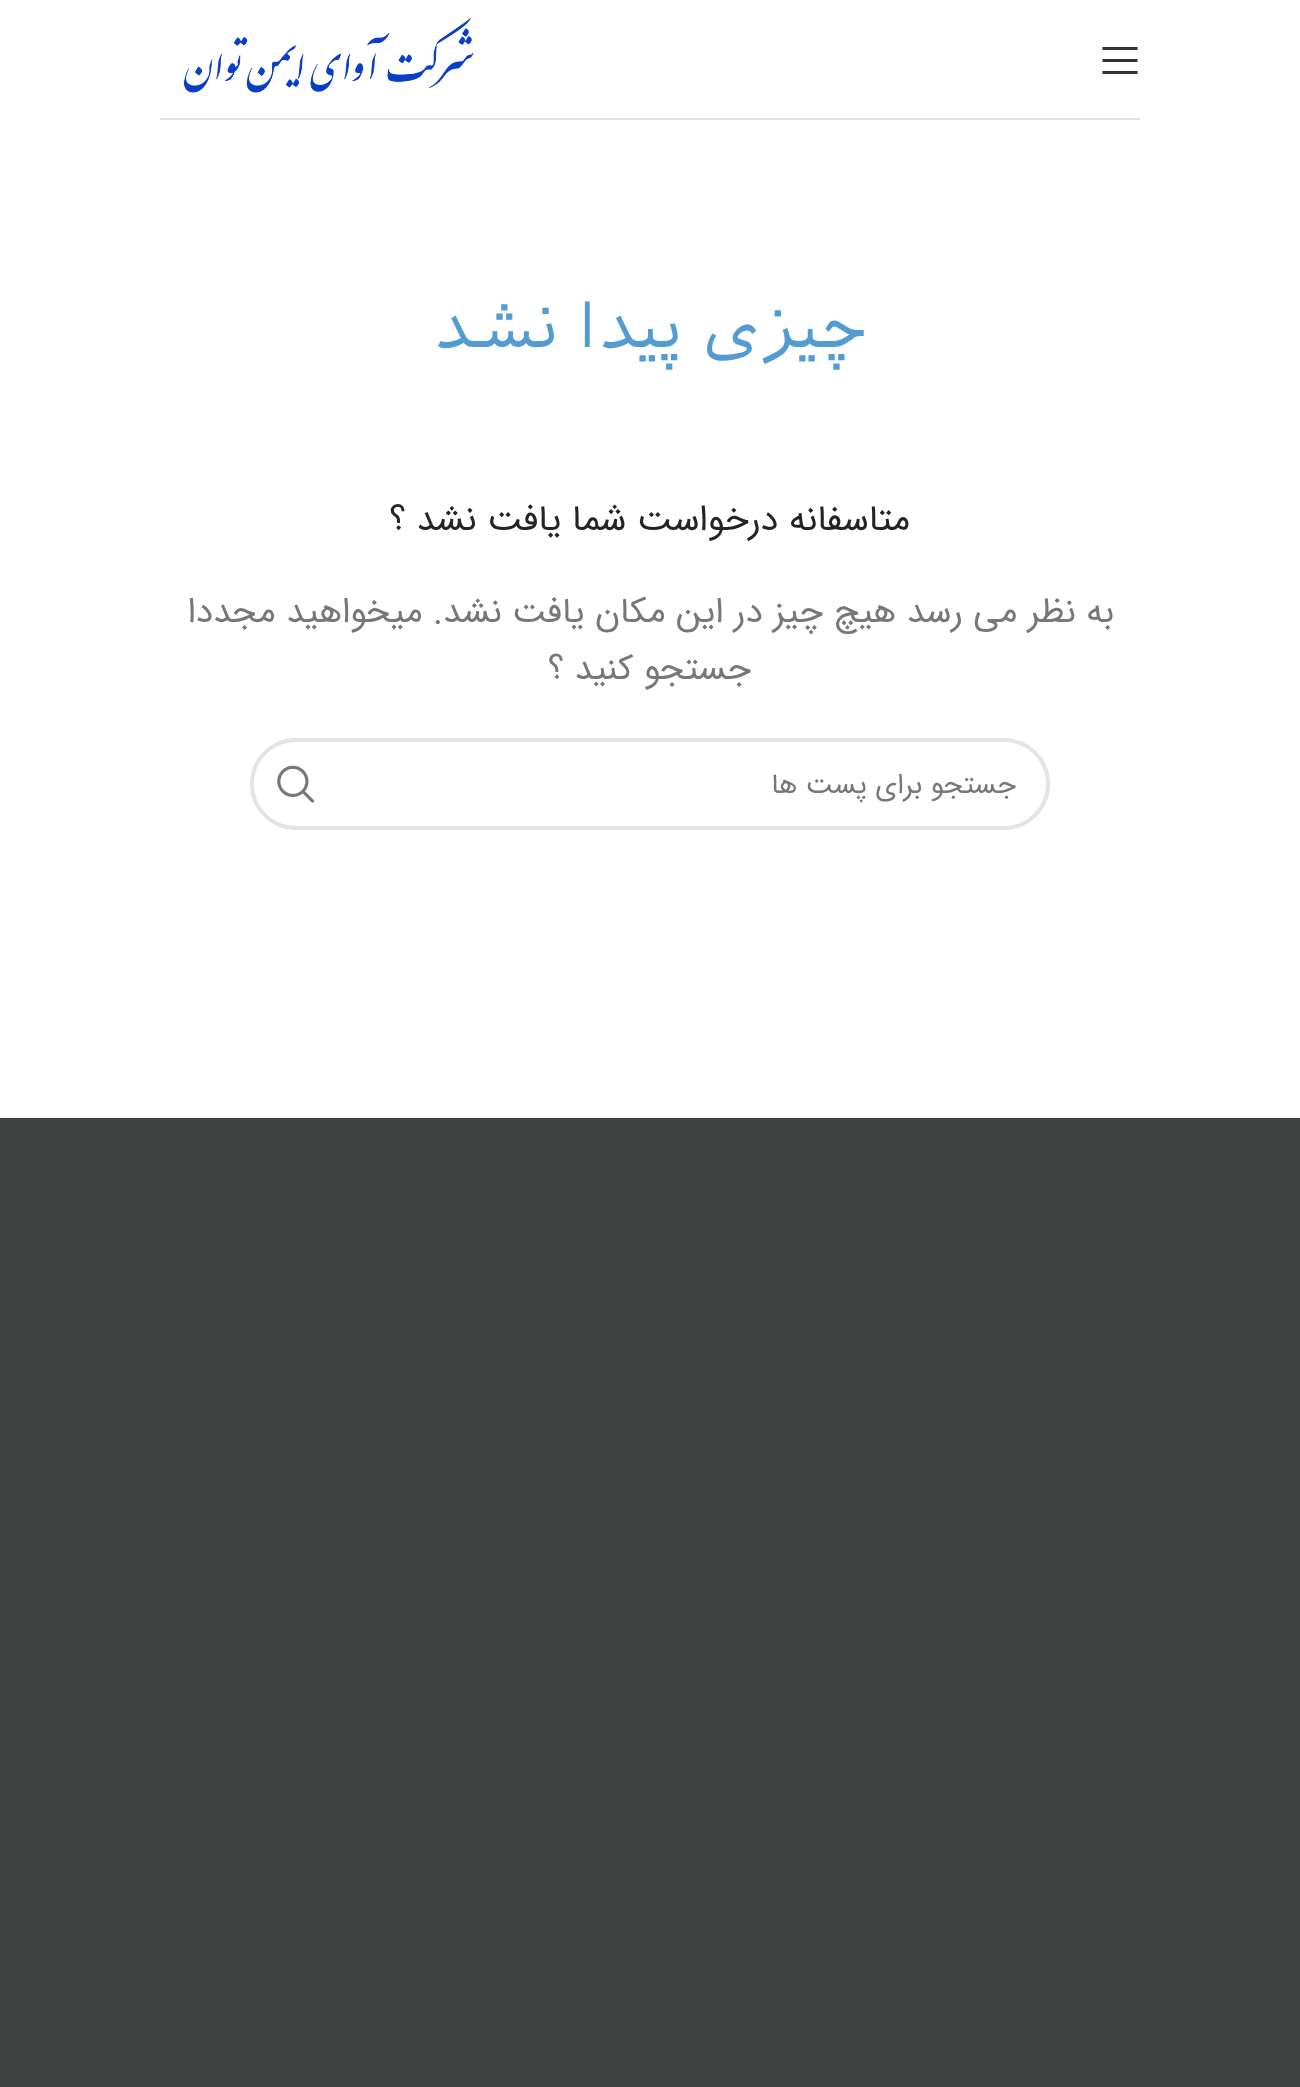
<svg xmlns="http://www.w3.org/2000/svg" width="1300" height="2087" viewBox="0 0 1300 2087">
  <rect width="100%" height="100%" fill="#fff"/>
  <path d="M160 118h980v2H160z" fill="#e3e3e3"/>
  <path d="M1102.5 50H1137.5V47H1102.5ZM1102.5 62H1137.5V59H1102.5ZM1102.5 74H1137.5V71H1102.5Z" fill="#333"/>
  <image x="183" y="17" width="291" height="76" href="img/1.png"/>
  <rect x="252" y="740" width="796" height="88" rx="44" fill="none" stroke="#e5e4e4" stroke-width="4"/>
  <image x="277" y="765" width="38" height="38" href="img/2.png"/>
  <path d="M0 1118h1300v969H0z" fill="#3e4140"/>
  <text x="868" y="350" font-family="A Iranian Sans" font-size="64" direction="rtl" fill="#539cd2">چیزی پیدا نشد</text>
  <text x="910" y="530" font-family="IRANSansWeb" font-size="36" direction="rtl" fill="#242424">متاسفانه درخواست شما یافت نشد ؟</text>
  <g font-family="IRANSansWeb" font-size="35.2" direction="rtl" fill="#777">
    <text x="1114" y="622">به نظر می رسد هیچ چیز در این مکان یافت نشد. میخواهید مجددا</text>
    <text x="751" y="679">جستجو کنید ؟</text>
  </g>
  <text x="1016" y="793" font-family="IRANSansWeb" font-size="28" direction="rtl" fill="#777">جستجو برای پست ها</text>
</svg>
